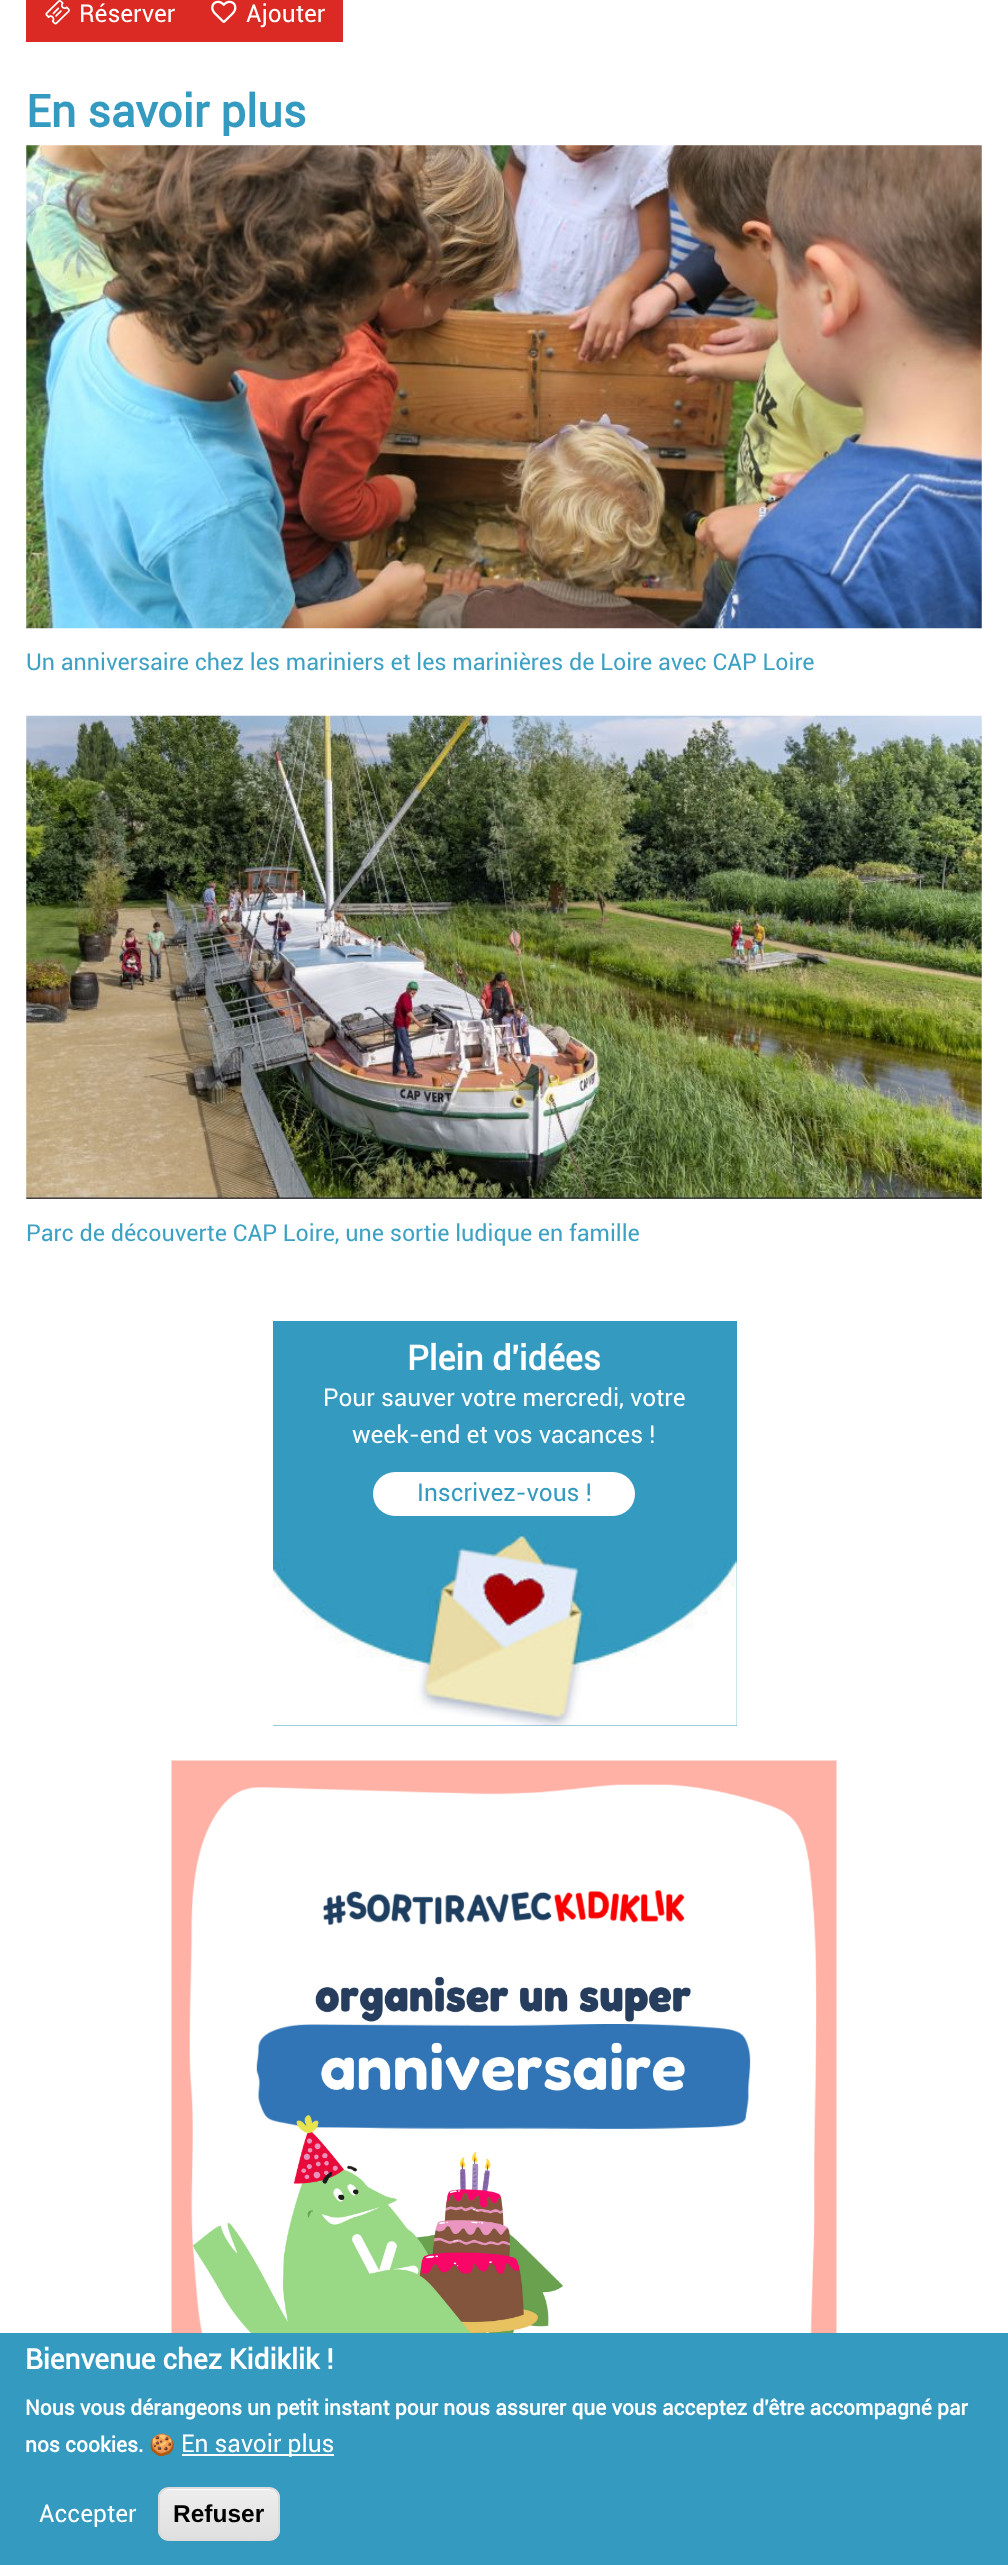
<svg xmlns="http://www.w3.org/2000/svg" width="1008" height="2565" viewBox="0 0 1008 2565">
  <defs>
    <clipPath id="clip1"><rect x="158" y="2487" width="122" height="54" rx="11"/></clipPath>
    <linearGradient id="g1" gradientUnits="userSpaceOnUse" x1="219" y1="2489" x2="219" y2="2539"><stop offset="0.05" stop-color="#ededed"/><stop offset="1" stop-color="#dfdfdf"/></linearGradient>
  </defs>
  <rect width="100%" height="100%" fill="#fff"/>
  <path d="M26 0h317v42H26z" fill="#db2a24"/>
  <image x="45" y="0" width="25" height="25" href="img/1.png"/>
  <image x="211" y="0" width="26" height="23" href="img/2.png"/>
  <image x="26" y="145" width="956" height="484" href="img/3.png"/>
  <image x="26" y="715" width="956" height="484" href="img/4.png"/>
  <path d="M273 1321h464v405H273z" fill="#349abf"/>
  <image x="273" y="1531" width="464" height="195" href="img/5.png"/>
  <rect x="373" y="1472" width="262" height="44" rx="22" fill="#fff"/>
  <image x="171" y="1760" width="666" height="573" href="img/6.png"/>
  <path d="M0 2333h1008v232H0z" fill="#349abf"/>
  <path d="M182 2454h152v2H182z" fill="#fff"/>
  <g clip-path="url(#clip1)">
    <path d="M158 2489h122v50H158z" fill="url(#g1)"/>
  </g>
  <path d="M168 2490H270C274 2490 278 2494 278 2499C278 2485 261 2489 252 2489H185C176 2489 159 2485 159 2499C159 2494 163 2490 168 2490Z" fill="#fff"/>
  <rect x="159" y="2488" width="120" height="52" rx="10" fill="none" stroke="#dcdcdc" stroke-width="2"/>
  <g font-family="Roboto" font-size="24.5" fill="#fff">
    <text x="79" y="22">Réserver</text>
    <text x="246" y="22">Ajouter</text>
  </g>
  <text x="26" y="127" font-family="Roboto" font-size="44.75" font-weight="bold" fill="#349abf">En savoir plus</text>
  <g font-family="Roboto" font-size="23.3" fill="#3da1c3">
    <text x="26" y="670">Un anniversaire chez les mariniers et les marinières de Loire avec CAP Loire</text>
    <text x="26" y="1241">Parc de découverte CAP Loire, une sortie ludique en famille</text>
  </g>
  <text x="407" y="1370" font-family="Roboto" font-size="34.25" font-weight="bold" fill="#fff">Plein d'idées</text>
  <g font-family="Roboto" font-size="24.5" fill="#fff">
    <text x="323" y="1406">Pour sauver votre mercredi, votre</text>
    <text x="352" y="1443">week-end et vos vacances !</text>
  </g>
  <text x="417" y="1501" font-family="Roboto" font-size="24.5" fill="#349abf">Inscrivez-vous !</text>
  <text x="25" y="2369" font-family="Roboto" font-size="28" font-weight="bold" fill="#fff">Bienvenue chez Kidiklik !</text>
  <g font-family="Roboto" font-size="21" font-weight="bold" fill="#fff">
    <text x="25" y="2415">Nous vous dérangeons un petit instant pour nous assurer que vous acceptez d'être accompagné par</text>
    <text x="25" y="2452">nos cookies.</text>
  </g>
  <text x="149" y="2452" font-family="Noto Color Emoji" font-size="21" font-weight="bold" fill="#fff">🍪</text>
  <g font-family="Roboto" font-size="24.5" fill="#fff">
    <text x="181" y="2452">En savoir plus</text>
    <text x="39" y="2522">Accepter</text>
  </g>
  <text x="173" y="2522" font-family="Liberation Sans" font-size="24.5" font-weight="bold" fill="#000">Refuser</text>
</svg>
